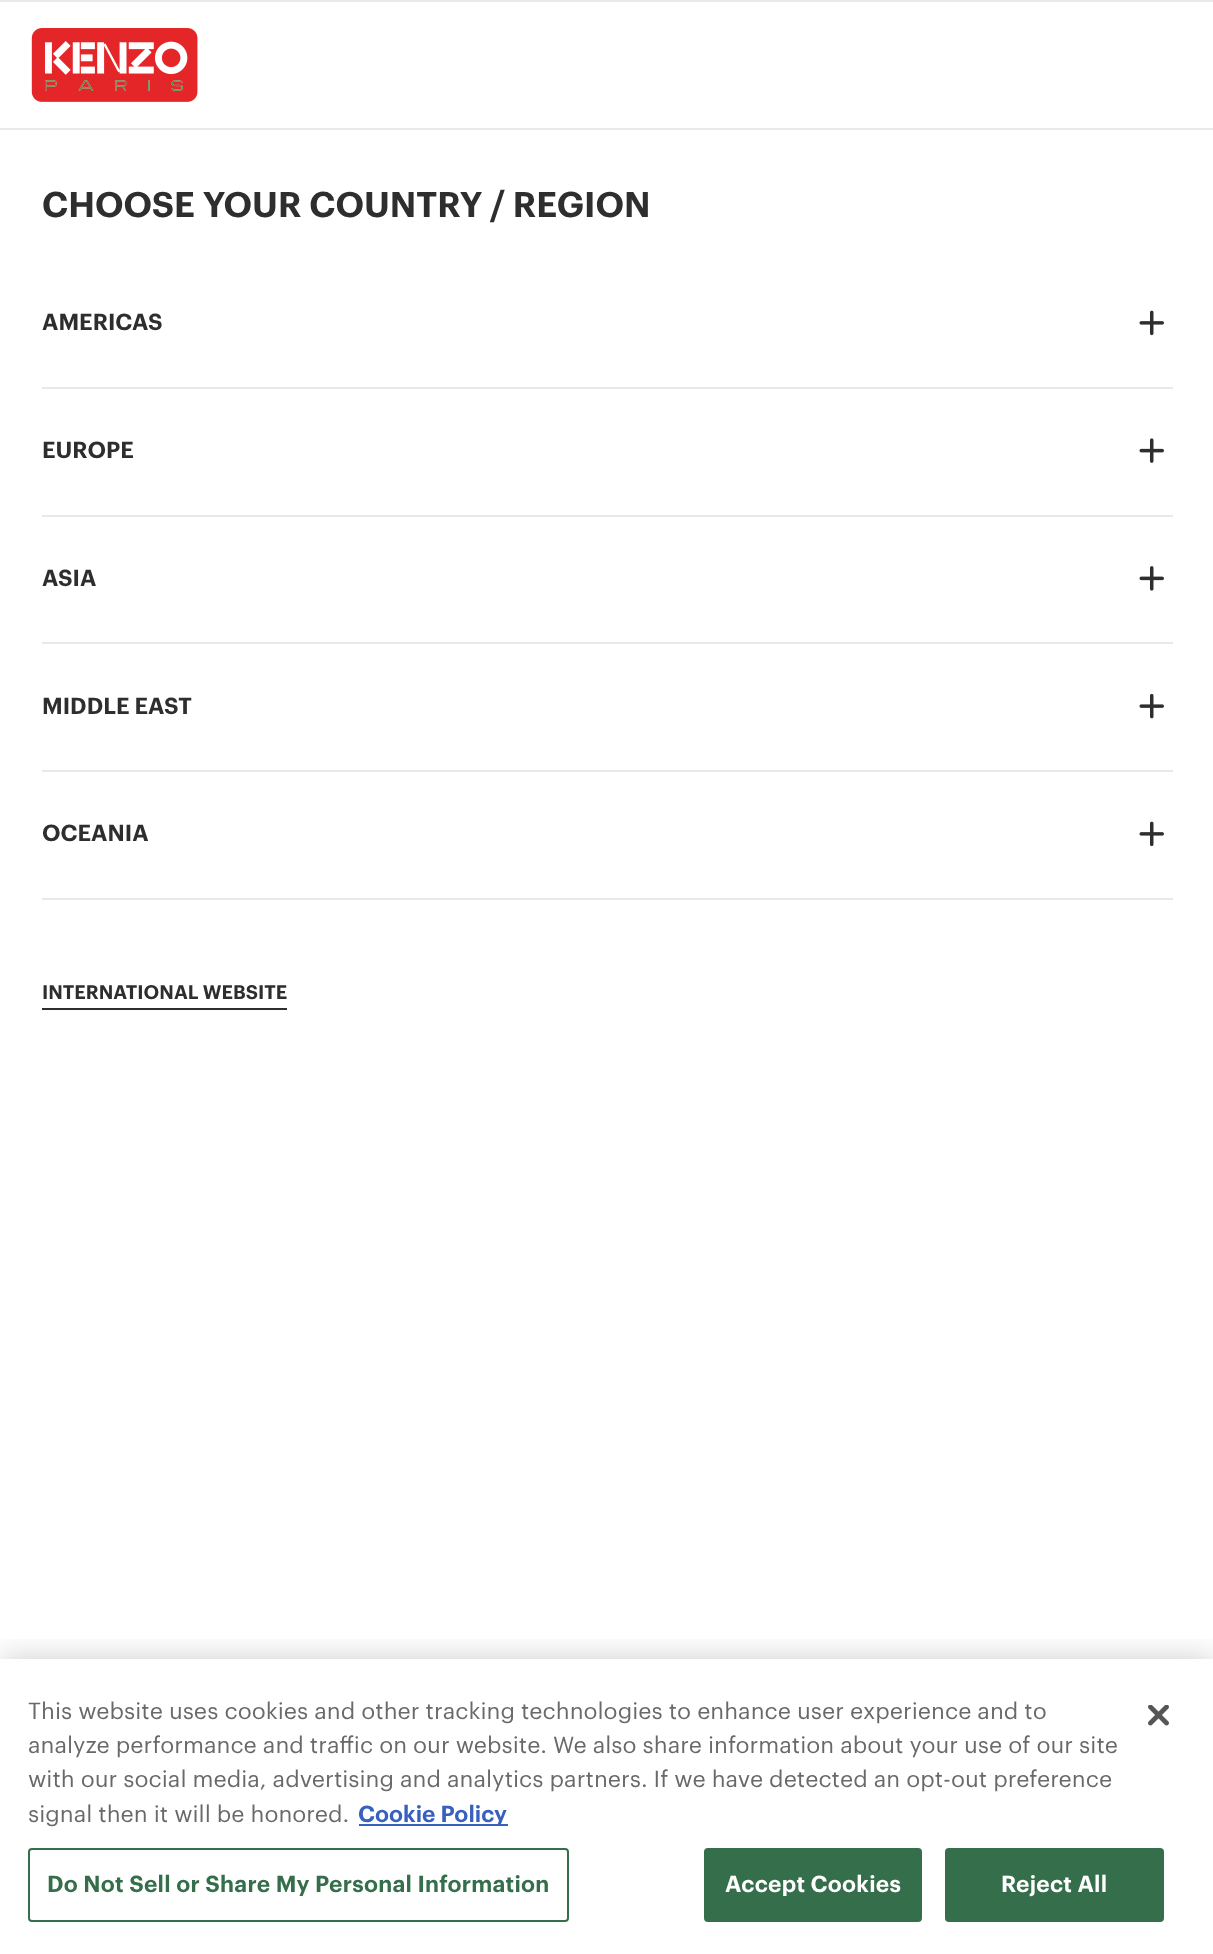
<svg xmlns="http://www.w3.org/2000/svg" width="1213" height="1954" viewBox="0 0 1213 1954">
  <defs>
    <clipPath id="clip1"><path d="M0 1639h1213v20H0z"/></clipPath>
  </defs>
  <rect width="100%" height="100%" fill="#fff"/>
  <path d="M0 0h1213v2H0z" fill="#e9e9e9"/>
  <path d="M0 128h1213v2H0z" fill="#e9e9e9"/>
  <image x="31" y="28" width="167" height="74" href="img/1.png"/>
  <path d="M42 387h1131v2H42z" fill="#e9e9e9"/>
  <image x="1139" y="310" width="25" height="26" href="img/2.png"/>
  <path d="M42 515h1131v2H42z" fill="#e9e9e9"/>
  <image x="1139" y="438" width="25" height="25" href="img/3.png"/>
  <path d="M42 642h1131v2H42z" fill="#e9e9e9"/>
  <image x="1139" y="566" width="25" height="25" href="img/4.png"/>
  <path d="M42 770h1131v2H42z" fill="#e9e9e9"/>
  <image x="1139" y="693" width="25" height="26" href="img/5.png"/>
  <path d="M42 898h1131v2H42z" fill="#e9e9e9"/>
  <image x="1139" y="821" width="25" height="26" href="img/2.png"/>
  <path d="M42 1008h245v2H42z" fill="#2e2e2e"/>
  <g clip-path="url(#clip1)">
    <path d="M0 1659h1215v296H0z" fill="#00000033" filter="blur(16px)"/>
  </g>
  <path d="M359 1824h149v2H359z" fill="#3860be"/>
  <rect x="29" y="1849" width="539" height="72" rx="3" fill="none" stroke="#346e4a" stroke-width="2"/>
  <rect x="705" y="1849" width="216" height="72" rx="3" fill="#346e4a" stroke="#346e4a" stroke-width="2"/>
  <rect x="946" y="1849" width="217" height="72" rx="3" fill="#346e4a" stroke="#346e4a" stroke-width="2"/>
  <image x="1148" y="1705" width="21" height="21" href="img/6.png"/>
  <text x="42" y="217" font-family="Graphik" font-size="35" font-weight="600" fill="#2e2e2e">CHOOSE YOUR COUNTRY / REGION</text>
  <g font-family="Graphik" font-size="22.75" font-weight="600" fill="#2e2e2e">
    <text x="42" y="330">AMERICAS</text>
    <text x="42" y="458">EUROPE</text>
    <text x="42" y="586">ASIA</text>
    <text x="42" y="714">MIDDLE EAST</text>
    <text x="42" y="841">OCEANIA</text>
  </g>
  <text x="42" y="999" font-family="Graphik" font-size="19.25" font-weight="600" fill="#2e2e2e">INTERNATIONAL WEBSITE</text>
  <g font-family="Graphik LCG" font-size="22.75" fill="#696969">
    <text x="28" y="1719">This website uses cookies and other tracking technologies to enhance user experience and to</text>
    <text x="28" y="1753">analyze performance and traffic on our website. We also share information about your use of our site</text>
    <text x="28" y="1787">with our social media, advertising and analytics partners. If we have detected an opt-out preference</text>
    <text x="28" y="1822">signal then it will be honored.</text>
  </g>
  <text x="358" y="1822" font-family="Graphik" font-size="22.75" font-weight="600" fill="#3860be">Cookie Policy</text>
  <text x="47" y="1892" font-family="Graphik" font-size="22.75" font-weight="600" letter-spacing="0.25" fill="#346e4a">Do Not Sell or Share My Personal Information</text>
  <g font-family="Graphik" font-size="22.75" font-weight="600" letter-spacing="0.25" fill="#fff">
    <text x="725" y="1892">Accept Cookies</text>
    <text x="1001" y="1892">Reject All</text>
  </g>
</svg>
